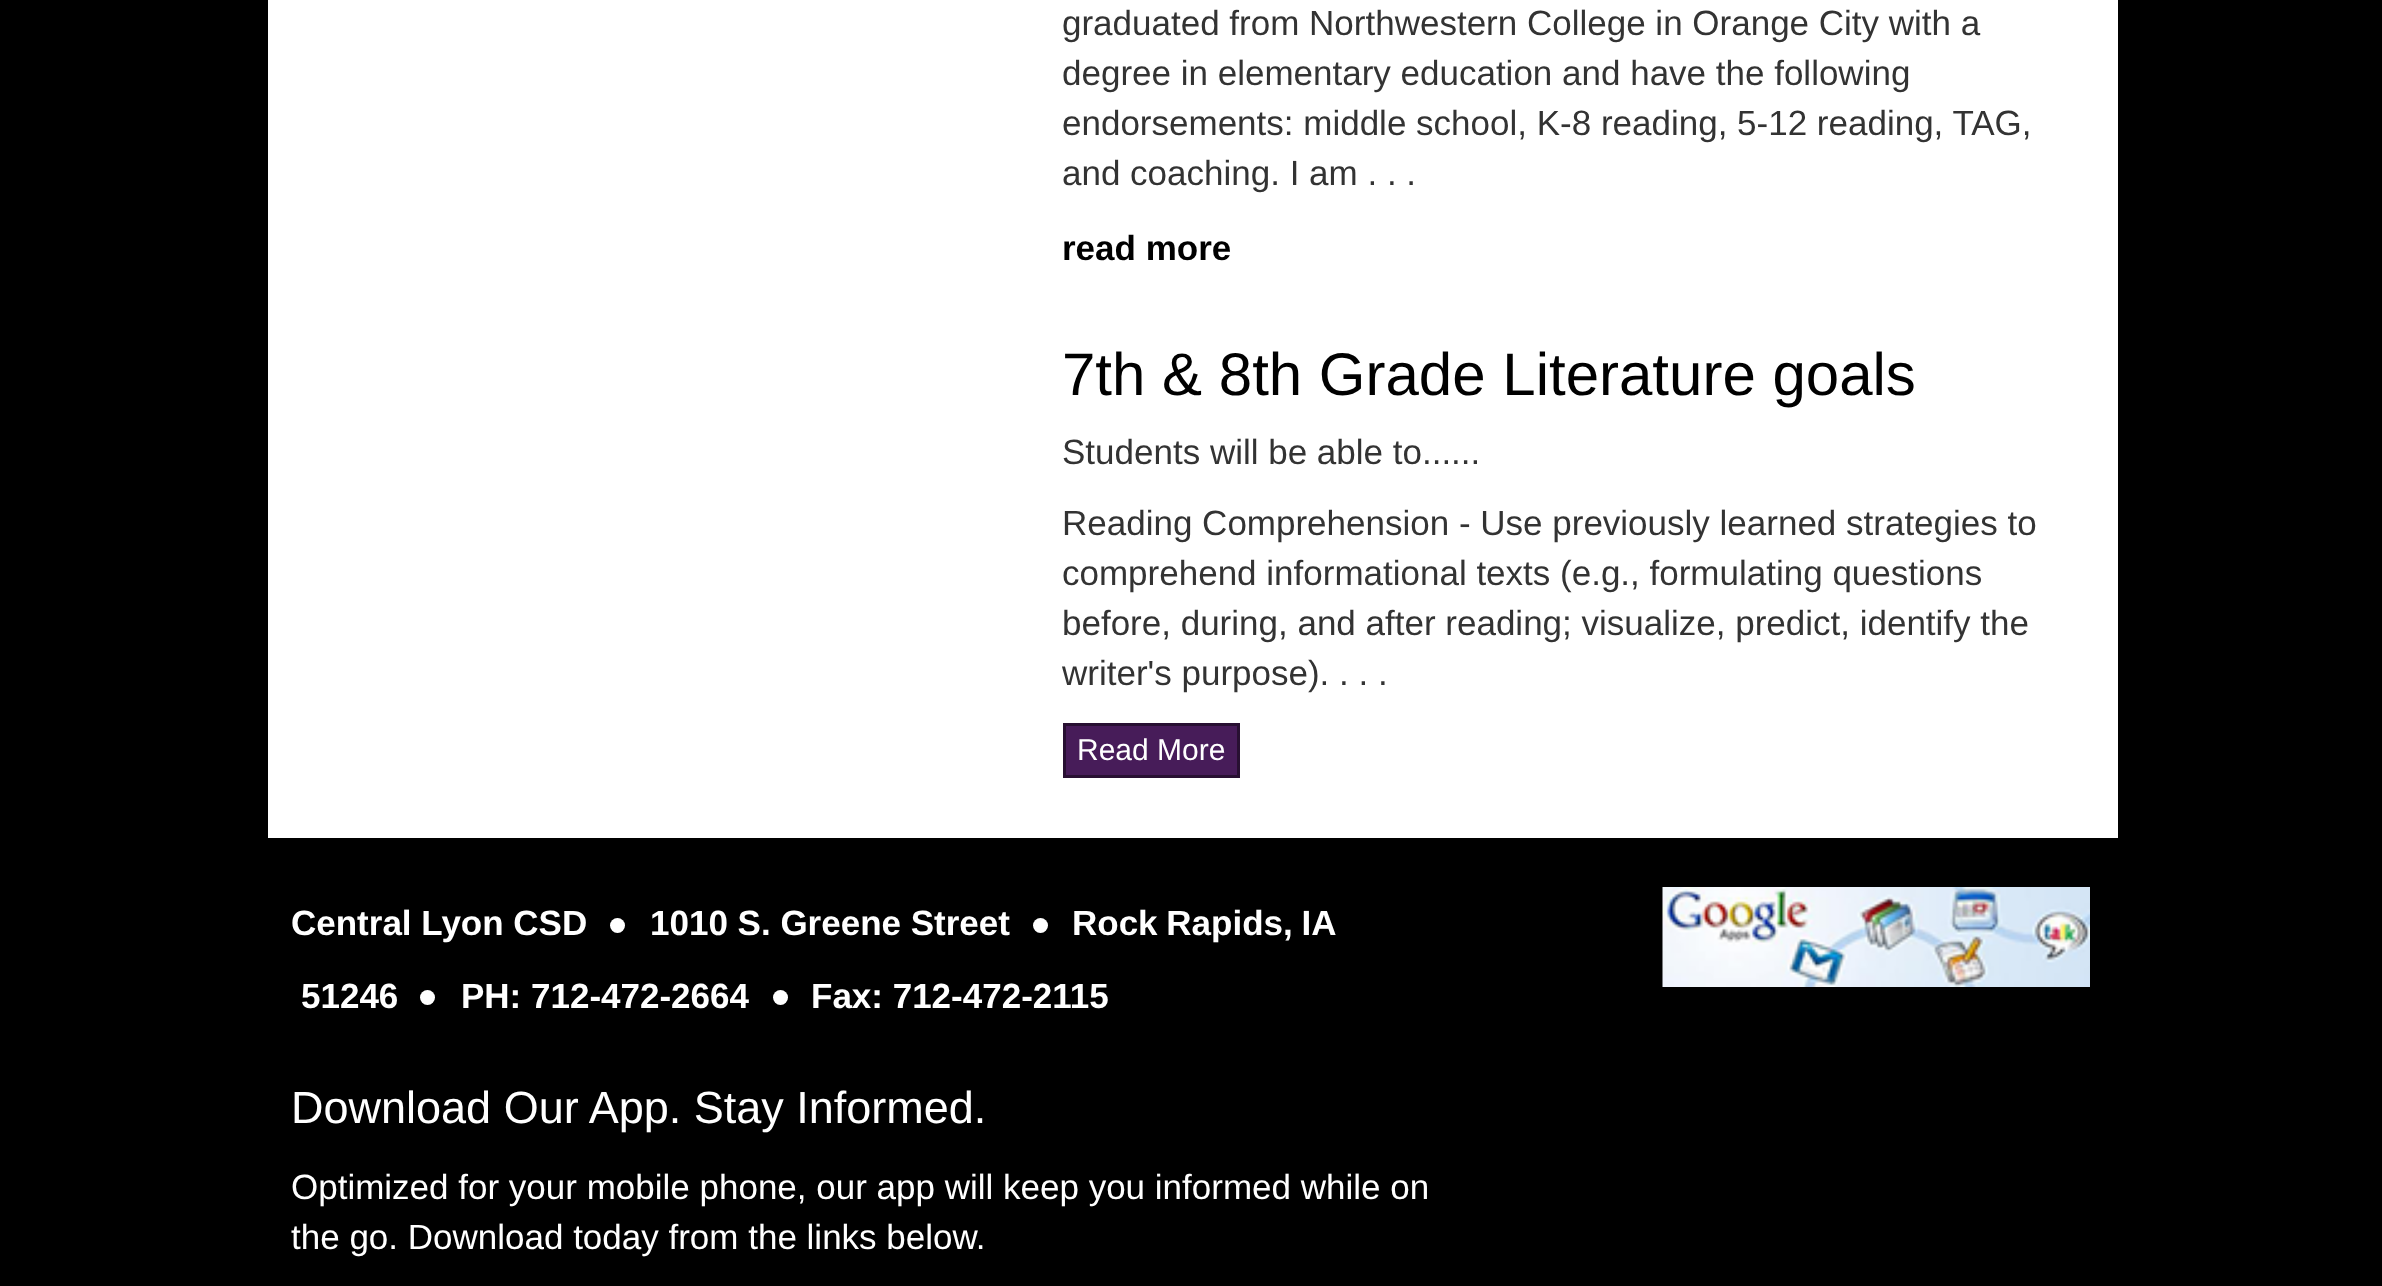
<svg xmlns="http://www.w3.org/2000/svg" width="2382" height="1286" viewBox="0 0 2382 1286">
  <rect width="100%" height="100%" fill="#000"/>
  <path d="M268 0h1850v838H268z" fill="#fff"/>
  <path d="M1064.5 724.5h174v52H1064.5z" fill="#471c59" stroke="#281032" stroke-width="3"/>
  <circle cx="1040.5" cy="925.5" r="7.5" fill="#fff"/>
  <circle cx="617.5" cy="925.5" r="7.5" fill="#fff"/>
  <circle cx="427.5" cy="997.5" r="7.5" fill="#fff"/>
  <circle cx="780.5" cy="997.5" r="7.5" fill="#fff"/>
  <image x="1662" y="887" width="428" height="100" href="img/1.png"/>
  <g font-family="Liberation Sans" font-size="35" fill="#333">
    <text x="1062" y="35">graduated from Northwestern College in Orange City with a</text>
    <text x="1062" y="85">degree in elementary education and have the following</text>
    <text x="1062" y="135">endorsements: middle school, K-8 reading, 5-12 reading, TAG,</text>
    <text x="1062" y="185">and coaching. I am . . .</text>
  </g>
  <text x="1062" y="260" font-family="Liberation Sans" font-size="35" font-weight="bold" fill="#000">read more</text>
  <text x="1062" y="395" font-family="Liberation Sans" font-size="60" fill="#000">7th &amp; 8th Grade Literature goals</text>
  <g font-family="Liberation Sans" font-size="35" fill="#333">
    <text x="1062" y="464">Students will be able to......</text>
    <text x="1062" y="535">Reading Comprehension - Use previously learned strategies to</text>
    <text x="1062" y="585">comprehend informational texts (e.g., formulating questions</text>
    <text x="1062" y="635">before, during, and after reading; visualize, predict, identify the</text>
    <text x="1062" y="685">writer's purpose). . . .</text>
  </g>
  <text x="1077" y="760" font-family="Liberation Sans" font-size="30" fill="#fff">Read More</text>
  <g font-family="Liberation Sans" font-size="35" font-weight="bold" fill="#fff">
    <text x="291" y="935">Central Lyon CSD</text>
    <text x="1072" y="935" word-spacing="-1">Rock Rapids, IA</text>
    <text x="301" y="1008">51246</text>
    <text x="650" y="935">1010 S. Greene Street</text>
    <text x="461" y="1008">PH: 712-472-2664</text>
    <text x="811" y="1008">Fax: 712-472-2115</text>
  </g>
  <text x="291" y="1123" font-family="Liberation Sans" font-size="45" fill="#fff">Download Our App. Stay Informed.</text>
  <g font-family="Liberation Sans" font-size="35" fill="#fff">
    <text x="291" y="1199">Optimized for your mobile phone, our app will keep you informed while on</text>
    <text x="291" y="1249">the go. Download today from the links below.</text>
  </g>
</svg>
